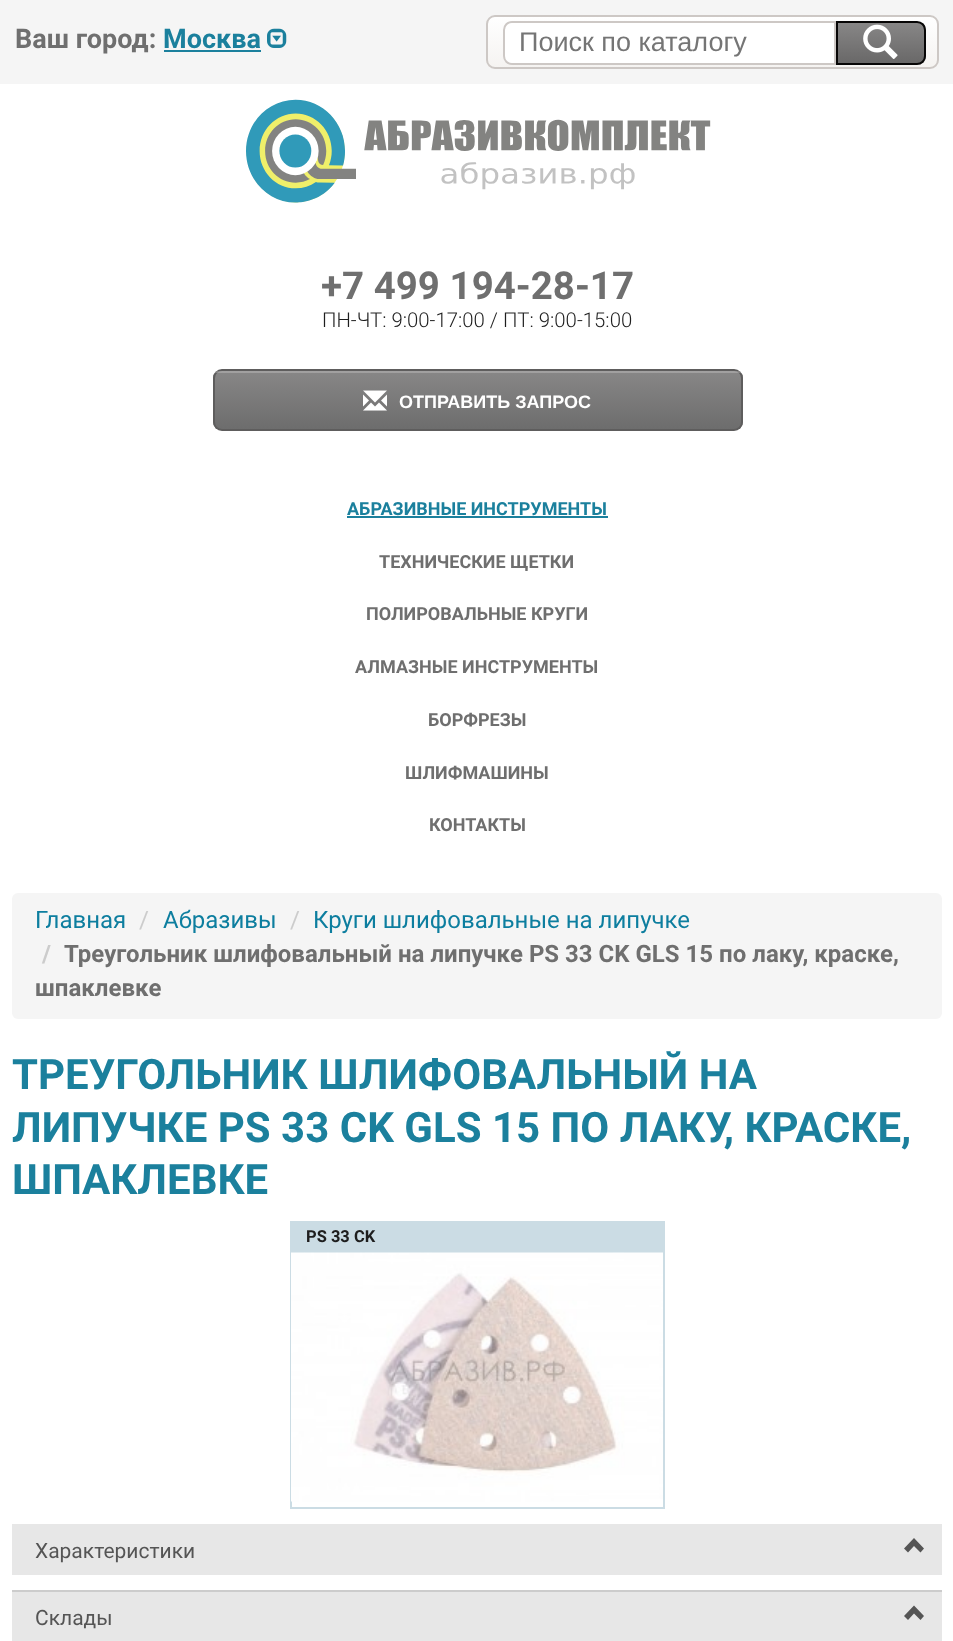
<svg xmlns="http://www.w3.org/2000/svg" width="953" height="1641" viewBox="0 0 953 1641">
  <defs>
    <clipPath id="clip1"><rect x="486" y="15" width="453" height="54" rx="9"/></clipPath>
    <linearGradient id="g1" gradientUnits="userSpaceOnUse" x1="713" y1="16" x2="713" y2="68"><stop offset="0" stop-color="#fff"/><stop offset="1" stop-color="#f5f3f1"/></linearGradient>
    <clipPath id="clip2"><path d="M836 21H917C922 21 926 25 926 30V56C926 61 922 65 917 65H836Z"/></clipPath>
    <linearGradient id="g2" gradientUnits="userSpaceOnUse" x1="881" y1="22" x2="881" y2="63"><stop offset="0" stop-color="#888787"/><stop offset="1" stop-color="#696868"/></linearGradient>
    <clipPath id="clip3"><rect x="213" y="369" width="530" height="62" rx="9"/></clipPath>
    <linearGradient id="g3" gradientUnits="userSpaceOnUse" x1="478" y1="370" x2="478" y2="429"><stop offset="0" stop-color="#888787"/><stop offset="1" stop-color="#6d6d6d"/></linearGradient>
  </defs>
  <rect width="100%" height="100%" fill="#fff"/>
  <path d="M0 0h953v84H0z" fill="#f5f5f5"/>
  <path d="M164 50h97v2H164z" fill="#1b809d"/>
  <image x="267" y="28" width="20" height="20" href="img/1.png"/>
  <g clip-path="url(#clip1)">
    <path d="M486 17h453v51H486z" fill="url(#g1)"/>
  </g>
  <rect x="487" y="16" width="451" height="52" rx="8" fill="none" stroke="#cdc8c5" stroke-width="2"/>
  <path d="M512 22H835V64H512C507.5 64 504 60.5 504 56V30C504 25.5 507.5 22 512 22Z" fill="#fff" stroke="#cdc8c5" stroke-width="2"/>
  <g clip-path="url(#clip2)">
    <path d="M838 23h88v40H838z" fill="url(#g2)"/>
  </g>
  <path d="M837 22H917C921.5 22 925 25.5 925 30V56C925 60.5 921.5 64 917 64H837Z" fill="none" stroke="#070606" stroke-width="2"/>
  <image x="863" y="24" width="35" height="35" href="img/2.png"/>
  <image x="246" y="99" width="465" height="104" href="img/3.png"/>
  <g clip-path="url(#clip3)">
    <path d="M213 371h530v58H213z" fill="url(#g3)"/>
  </g>
  <rect x="214" y="370" width="528" height="60" rx="8" fill="none" stroke="#5e5d5d" stroke-width="2"/>
  <path d="M215 371h526v2H215z" fill="#ffffff38"/>
  <image x="363" y="390" width="24" height="21" href="img/4.png"/>
  <path d="M347 516h261v2H347z" fill="#1b809d"/>
  <rect x="12" y="893" width="930" height="126" rx="6" fill="#f5f5f5"/>
  <path d="M291 1222h373v286H291z" fill="none" stroke="#cbdce4" stroke-width="2"/>
  <path d="M292 1223h371v30H292z" fill="#cbdce4"/>
  <image x="291" y="1252" width="372" height="250" href="img/5.png"/>
  <path d="M12 1590h930v2H12z" fill="#ccc"/>
  <path d="M12 1524h930v51H12z" fill="#e7e7e7"/>
  <path d="M904 1548.5L908 1552.5L914 1546L920.5 1552.5L924 1548.5L914 1538Z" fill="#555"/>
  <path d="M12 1592h930v49H12z" fill="#e7e7e7"/>
  <path d="M904 1616L908 1620L914 1613.5L920.5 1620L924 1616L914 1605.5Z" fill="#555"/>
  <text x="15" y="48" font-family="Roboto" font-size="27" font-weight="bold" fill="#6f6f6f">Ваш город:</text>
  <text x="163" y="48" font-family="Roboto" font-size="27" font-weight="bold" fill="#1b809d">Москва</text>
  <text x="519" y="51" font-family="Liberation Sans" font-size="27" fill="#757575">Поиск по каталогу</text>
  <text x="321" y="299" font-family="Roboto" font-size="38.5" font-weight="bold" fill="#6f6f6f">+7 499 194-28-17</text>
  <text x="322" y="327" font-family="Roboto" font-size="20.4" font-weight="300" fill="#1e1e1e">ПН-ЧТ: 9:00-17:00 / ПТ: 9:00-15:00</text>
  <text x="399" y="408" font-family="Liberation Sans" font-size="18" font-weight="bold" fill="#fff">ОТПРАВИТЬ ЗАПРОС</text>
  <text x="347" y="515" font-family="Roboto" font-size="18" font-weight="bold" fill="#1b809d">АБРАЗИВНЫЕ ИНСТРУМЕНТЫ</text>
  <g font-family="Roboto" font-size="18" font-weight="bold" fill="#6f6f6f">
    <text x="379" y="568">ТЕХНИЧЕСКИЕ ЩЕТКИ</text>
    <text x="366" y="620">ПОЛИРОВАЛЬНЫЕ КРУГИ</text>
    <text x="355" y="673">АЛМАЗНЫЕ ИНСТРУМЕНТЫ</text>
    <text x="428" y="726">БОРФРЕЗЫ</text>
    <text x="405" y="779">ШЛИФМАШИНЫ</text>
    <text x="429" y="831">КОНТАКТЫ</text>
  </g>
  <text x="35" y="928" font-family="Roboto" font-size="24" fill="#0d7e9f">Главная</text>
  <text x="139" y="928" font-family="Roboto" font-size="24" fill="#ccc">/</text>
  <text x="163" y="928" font-family="Roboto" font-size="24" fill="#0d7e9f">Абразивы</text>
  <text x="290" y="928" font-family="Roboto" font-size="24" fill="#ccc">/</text>
  <text x="313" y="928" font-family="Roboto" font-size="24" fill="#0d7e9f">Круги шлифовальные на липучке</text>
  <text x="42" y="962" font-family="Roboto" font-size="24" font-weight="bold" fill="#ccc">/</text>
  <g font-family="Roboto" font-size="24" font-weight="bold" fill="#6f6f6f">
    <text x="64" y="962">Треугольник шлифовальный на липучке PS 33 CK GLS 15 по лаку, краске,</text>
    <text x="35" y="996">шпаклевке</text>
  </g>
  <g font-family="Roboto" font-size="42" font-weight="bold" fill="#1b809d">
    <text x="12" y="1089">ТРЕУГОЛЬНИК ШЛИФОВАЛЬНЫЙ НА</text>
    <text x="12" y="1142">ЛИПУЧКЕ PS 33 CK GLS 15 ПО ЛАКУ, КРАСКЕ,</text>
    <text x="12" y="1194">ШПАКЛЕВКЕ</text>
  </g>
  <text x="306" y="1242" font-family="Roboto" font-size="16.5" font-weight="bold" fill="#1e1e1e">PS 33 CK</text>
  <g font-family="Roboto" font-size="21" fill="#555">
    <text x="35" y="1558">Характеристики</text>
    <text x="35" y="1625">Склады</text>
  </g>
</svg>
